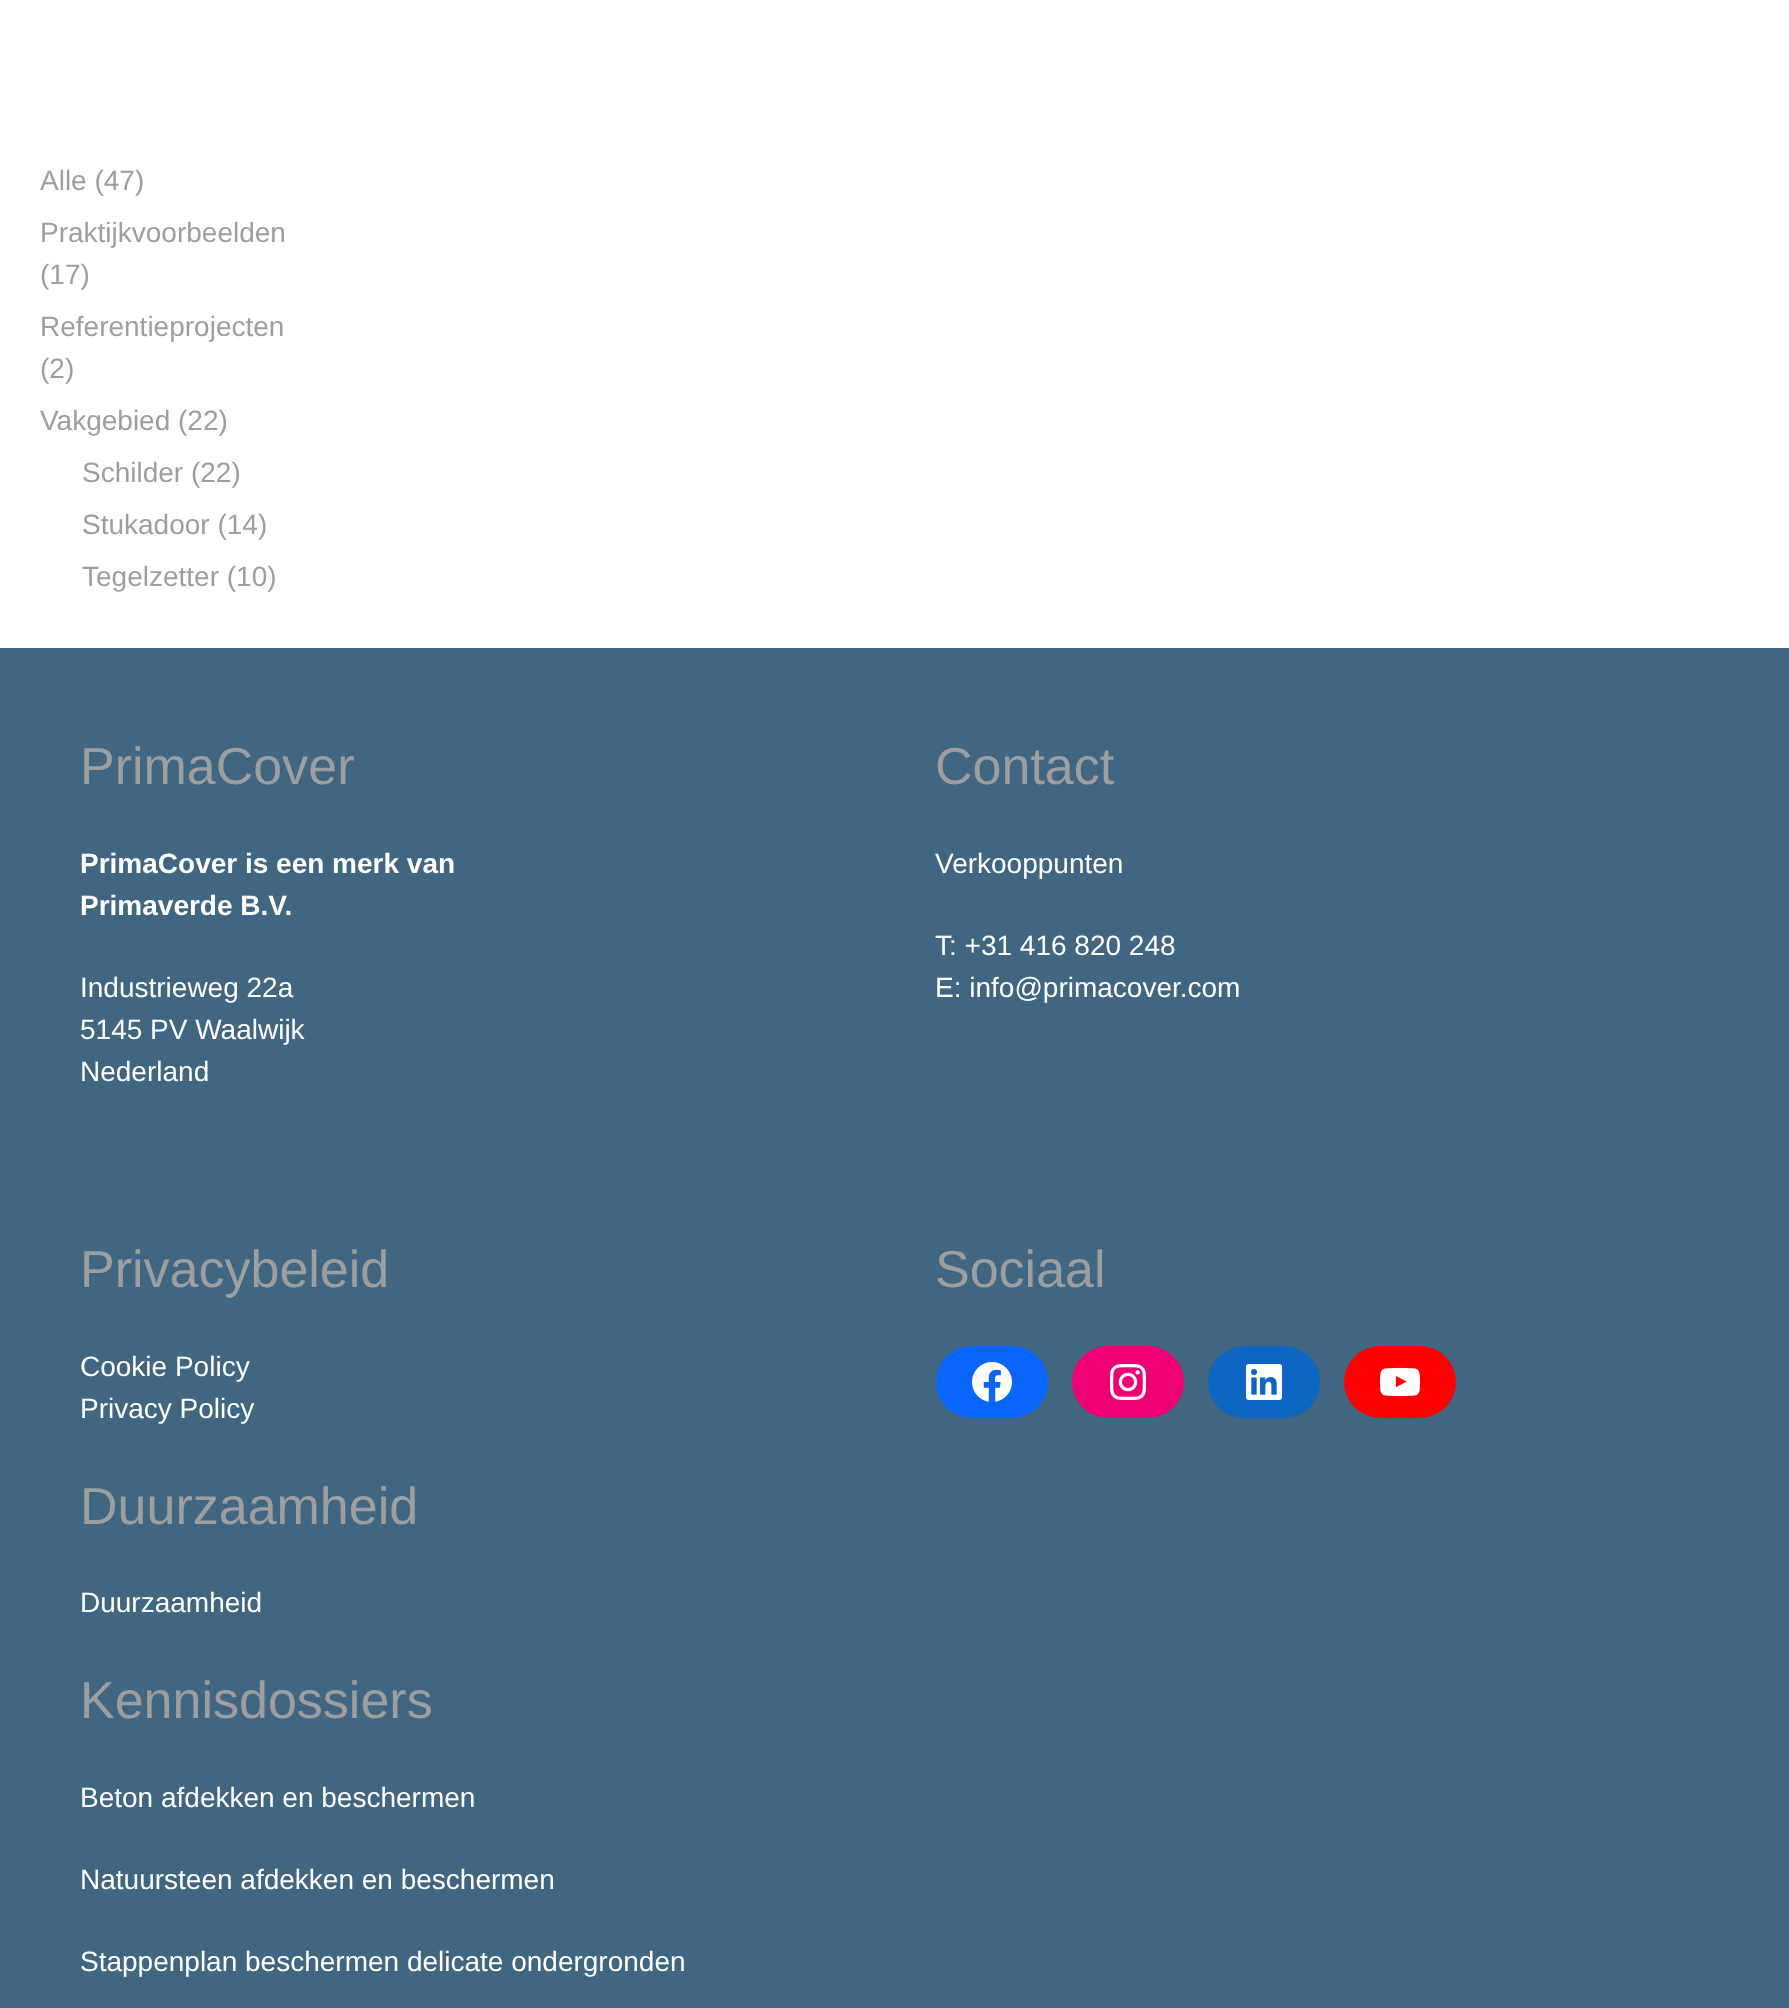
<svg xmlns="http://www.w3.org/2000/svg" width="1789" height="2008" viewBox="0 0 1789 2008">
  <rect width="100%" height="100%" fill="#fff"/>
  <path d="M0 648h1789v1360H0z" fill="#416681"/>
  <rect x="936" y="1346" width="112" height="72" rx="36" fill="#0866ff"/>
  <image x="972" y="1362" width="40" height="40" href="img/1.png"/>
  <rect x="1072" y="1346" width="112" height="72" rx="36" fill="#f00075"/>
  <image x="1110" y="1364" width="36" height="36" href="img/2.png"/>
  <rect x="1208" y="1346" width="112" height="72" rx="36" fill="#0d66c2"/>
  <image x="1246" y="1364" width="36" height="36" href="img/3.png"/>
  <rect x="1344" y="1346" width="112" height="72" rx="36" fill="#f00"/>
  <image x="1380" y="1367" width="40" height="30" href="img/4.png"/>
  <g font-family="Liberation Sans" font-size="28" fill="#9e9e9e">
    <text x="40" y="190">Alle (47)</text>
    <text x="40" y="242">Praktijkvoorbeelden</text>
    <text x="40" y="284">(17)</text>
    <text x="40" y="336">Referentieprojecten</text>
    <text x="40" y="378">(2)</text>
    <text x="40" y="430">Vakgebied (22)</text>
    <text x="82" y="482">Schilder (22)</text>
    <text x="82" y="534">Stukadoor (14)</text>
    <text x="82" y="586">Tegelzetter (10)</text>
  </g>
  <text x="80" y="784" font-family="Liberation Sans" font-size="52" fill="#9e9e9e">PrimaCover</text>
  <g font-family="Liberation Sans" font-size="28" font-weight="bold" fill="#fff">
    <text x="80" y="873">PrimaCover is een merk van</text>
    <text x="80" y="915">Primaverde B.V.</text>
  </g>
  <g font-family="Liberation Sans" font-size="28" fill="#fff">
    <text x="80" y="997">Industrieweg 22a</text>
    <text x="80" y="1039">5145 PV Waalwijk</text>
    <text x="80" y="1081">Nederland</text>
  </g>
  <text x="935" y="784" font-family="Liberation Sans" font-size="52" fill="#9e9e9e">Contact</text>
  <g font-family="Liberation Sans" font-size="28" fill="#fff">
    <text x="935" y="873">Verkooppunten</text>
    <text x="935" y="955">T: +31 416 820 248</text>
    <text x="935" y="997">E: info@primacover.com</text>
  </g>
  <text x="80" y="1287" font-family="Liberation Sans" font-size="52" fill="#9e9e9e">Privacybeleid</text>
  <g font-family="Liberation Sans" font-size="28" fill="#fff">
    <text x="80" y="1376">Cookie Policy</text>
    <text x="80" y="1418">Privacy Policy</text>
  </g>
  <text x="80" y="1524" font-family="Liberation Sans" font-size="52" fill="#9e9e9e">Duurzaamheid</text>
  <text x="80" y="1612" font-family="Liberation Sans" font-size="28" fill="#fff">Duurzaamheid</text>
  <text x="80" y="1718" font-family="Liberation Sans" font-size="52" fill="#9e9e9e">Kennisdossiers</text>
  <g font-family="Liberation Sans" font-size="28" fill="#fff">
    <text x="80" y="1807">Beton afdekken en beschermen</text>
    <text x="80" y="1889">Natuursteen afdekken en beschermen</text>
    <text x="80" y="1971">Stappenplan beschermen delicate ondergronden</text>
  </g>
  <text x="935" y="1287" font-family="Liberation Sans" font-size="52" fill="#9e9e9e">Sociaal</text>
</svg>
